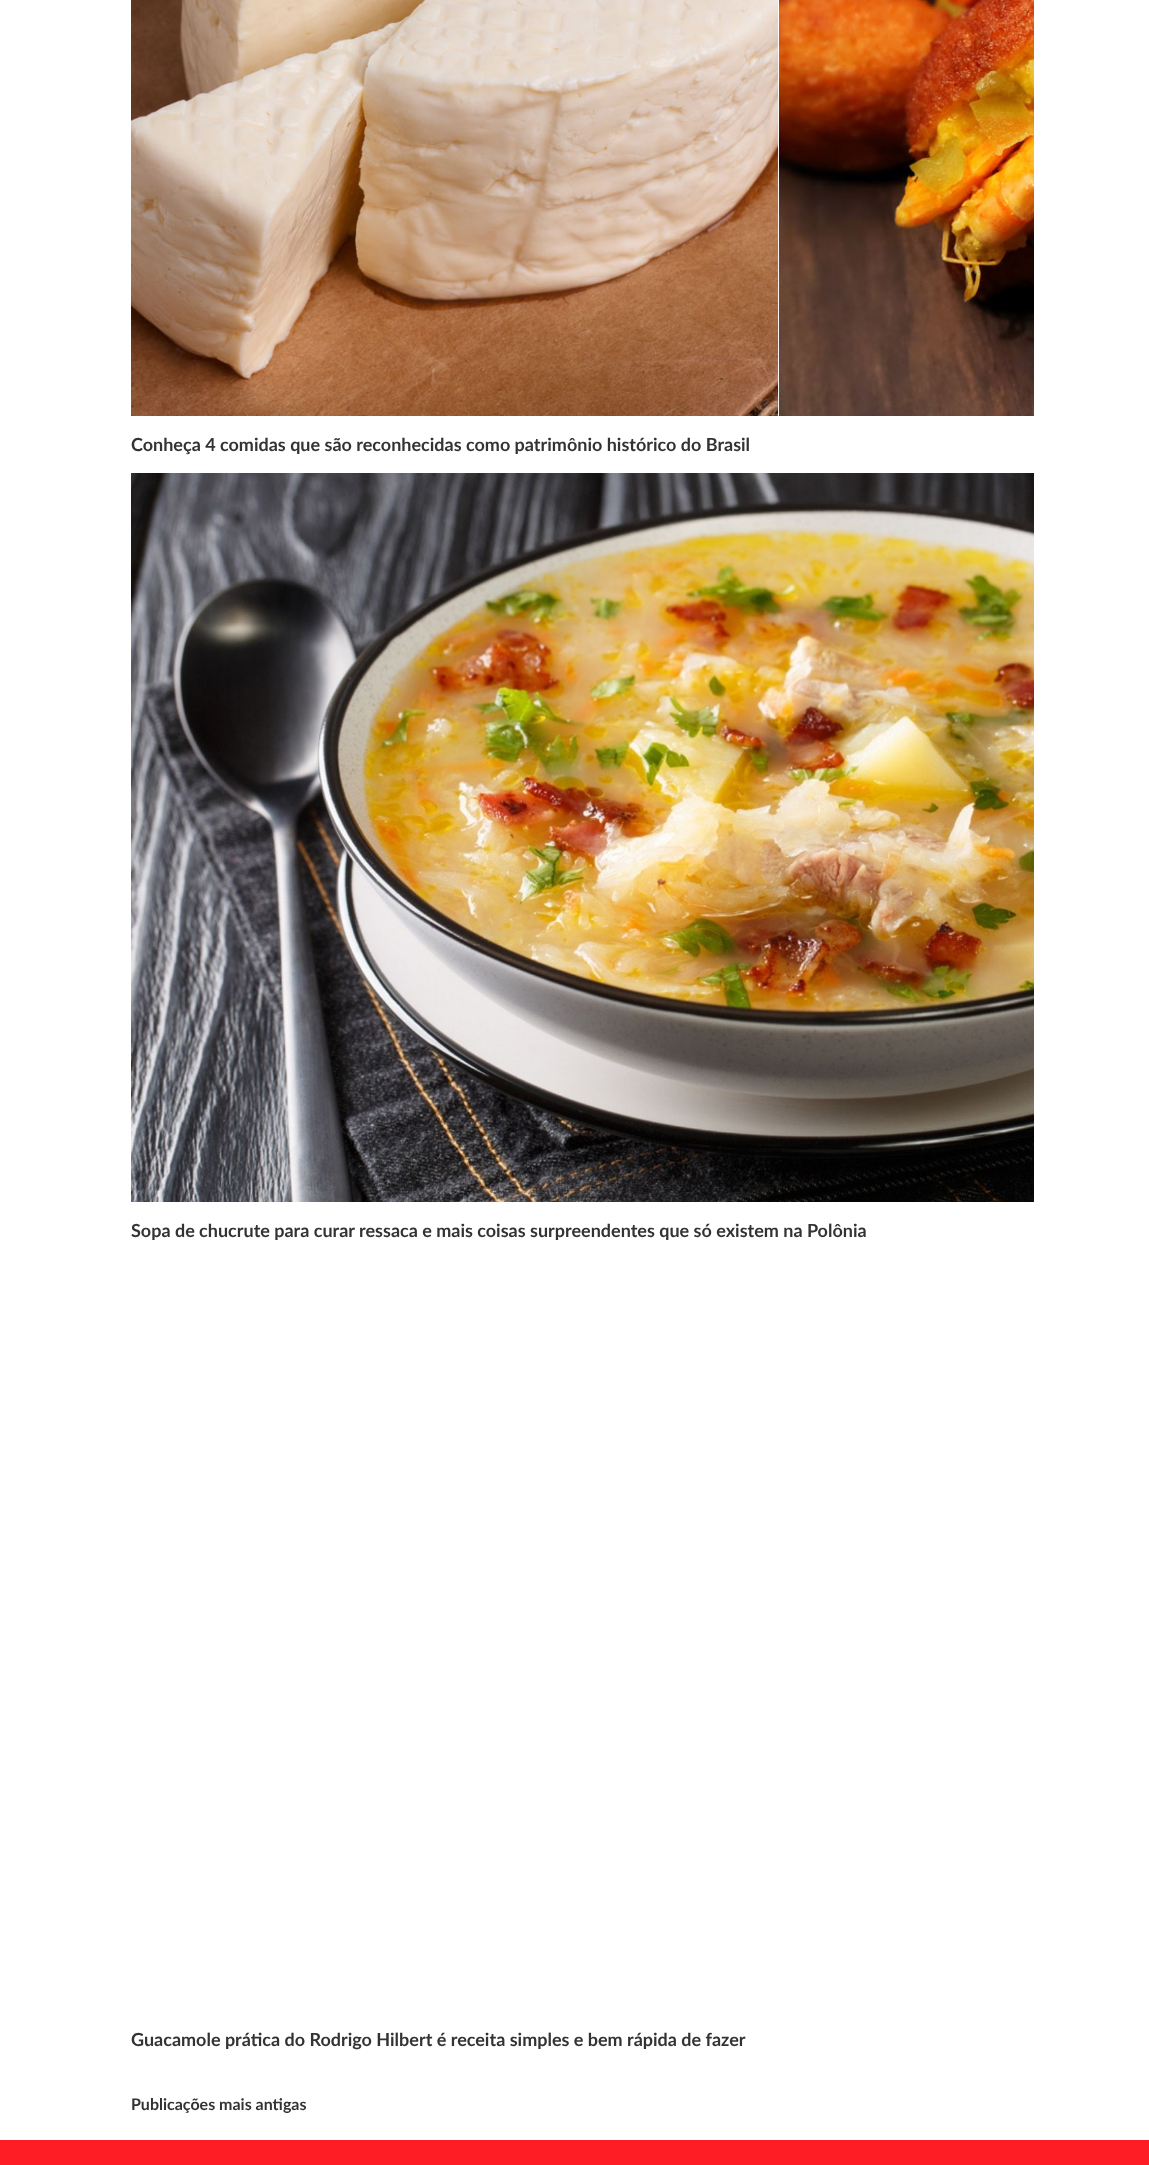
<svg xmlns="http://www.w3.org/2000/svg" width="1149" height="2165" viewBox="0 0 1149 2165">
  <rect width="100%" height="100%" fill="#fff"/>
  <image x="131" y="0" width="903" height="416" href="img/1.png"/>
  <image x="131" y="473" width="903" height="729" href="img/2.png"/>
  <path d="M0 2140h1149v25H0z" fill="#ff1d25"/>
  <g font-family="Lato" font-size="18" font-weight="bold" fill="#333">
    <text x="131" y="451">Conheça 4 comidas que são reconhecidas como patrimônio histórico do Brasil</text>
    <text x="131" y="1237">Sopa de chucrute para curar ressaca e mais coisas surpreendentes que só existem na Polônia</text>
    <text x="131" y="2046">Guacamole prática do Rodrigo Hilbert é receita simples e bem rápida de fazer</text>
  </g>
  <text x="131" y="2110" font-family="Lato" font-size="16" font-weight="bold" fill="#333">Publicações mais antigas</text>
</svg>
